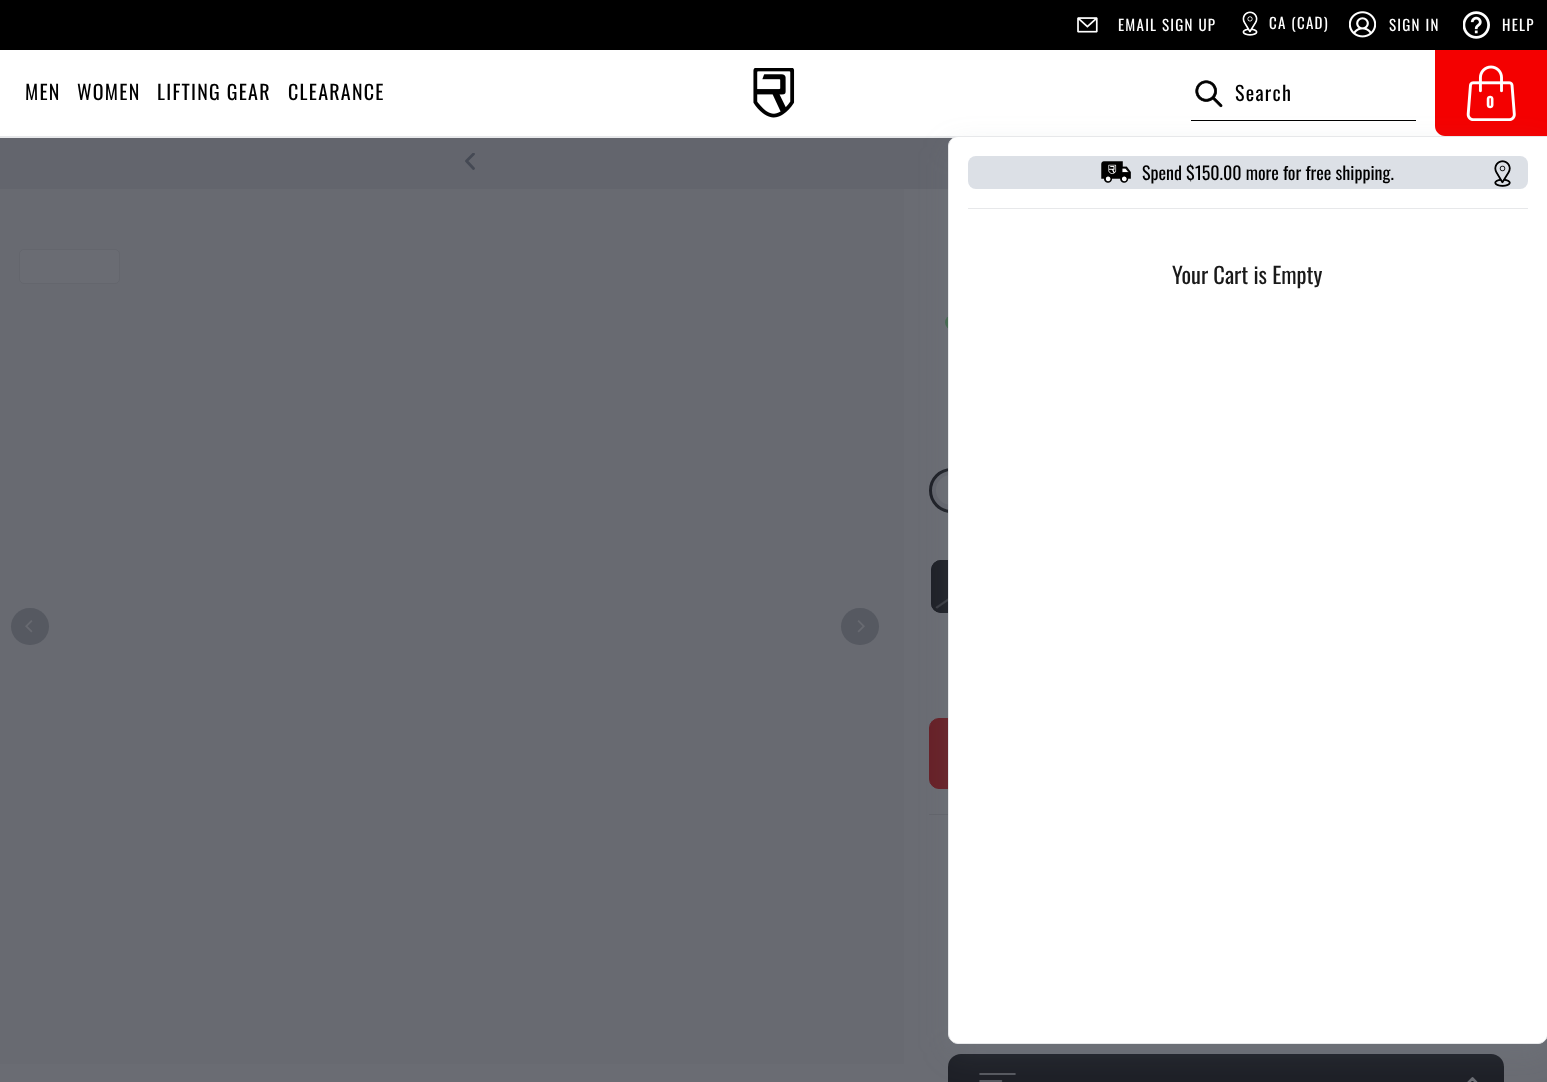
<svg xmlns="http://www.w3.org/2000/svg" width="1547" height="1082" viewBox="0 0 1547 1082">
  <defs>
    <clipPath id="clip1"><path d="M461 153h18v17H461z"/></clipPath>
    <linearGradient id="g1" gradientUnits="userSpaceOnUse" x1="946" y1="554" x2="990" y2="618"><stop offset="0.48" stop-color="#000"/><stop offset="0.5" stop-color="#c7c7c7" stop-opacity="0.5"/><stop offset="0.52" stop-color="#000"/></linearGradient>
  </defs>
  <rect width="100%" height="100%" fill="#fff"/>
  <path d="M0 0h1547v50H0z" fill="#000"/>
  <image x="1077" y="17" width="21" height="16" href="img/1.png"/>
  <image x="1242" y="11" width="16" height="25" href="img/2.png"/>
  <image x="1349" y="11" width="27" height="27" href="img/3.png"/>
  <image x="1463" y="11" width="27" height="28" href="img/4.png"/>
  <image x="753" y="68" width="42" height="50" href="img/5.png"/>
  <image x="1195" y="80" width="28" height="28" href="img/6.png"/>
  <path d="M1191 120h225v1H1191z" fill="#000"/>
  <path d="M1435 50H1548V136H1445C1439.5 136 1435 131.5 1435 126Z" fill="#f40000"/>
  <image x="1466" y="65" width="50" height="56" href="img/7.png"/>
  <path d="M0 136h958v53H0z" fill="#e7e8ea"/>
  <rect x="11" y="608" width="38" height="37" rx="18.5" fill="#c2c5c9"/>
  <image x="25" y="620" width="8" height="13" href="img/10.png"/>
  <rect x="841" y="608" width="38" height="37" rx="18.5" fill="#c2c5c9"/>
  <image x="857" y="620" width="8" height="13" href="img/11.png"/>
  <path d="M0 189h904v875H0z" fill="#00000008"/>
  <rect x="19" y="249" width="101" height="35" rx="5" fill="#fefefe"/>
  <rect x="19.5" y="249.5" width="100" height="34" rx="4.5" fill="none" stroke="#00000014"/>
  <path d="M0 138h106v944H0z" fill="#2b2e38b3"/>
  <g clip-path="url(#clip1)">
    <path d="M473.5 154L466.5 161L473.5 168.5" fill="none" stroke="#828b96" stroke-width="2.8" stroke-linecap="round" stroke-linejoin="round"/>
  </g>
  <circle cx="952.5" cy="322.5" r="7.5" fill="#7ced82"/>
  <circle cx="951.5" cy="490.5" r="21" fill="#e7e8ea" stroke="#000" stroke-width="3"/>
  <circle cx="951" cy="490" r="15" fill="#fff"/>
  <rect x="931" y="560" width="74" height="53" rx="10" fill="#000"/>
  <path d="M934 598h14v12H934z" fill="url(#g1)"/>
  <rect x="932.5" y="561.5" width="71" height="50" rx="8.5" fill="none" stroke="#000" stroke-width="3"/>
  <rect x="929.5" y="718.5" width="593" height="70" rx="9.5" fill="#f40000" stroke="#f40000"/>
  <path d="M929 814h19v1H929z" fill="#e3e3e3"/>
  <rect x="948" y="1054" width="556" height="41" rx="13" fill="#000"/>
  <path d="M1483 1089.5L1472.5 1078.5L1461.5 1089.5" fill="none" stroke="#fff" stroke-width="2.6" stroke-linecap="round" stroke-linejoin="round"/>
  <path d="M980 1081H1001.5M980 1074H1015" fill="none" stroke="#fff" stroke-width="1.6" stroke-linecap="round"/>
  <path d="M106 138h1441v944H106z" fill="#2b2e38b3"/>
  <rect x="948" y="146" width="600" height="908" rx="10" fill="#828b9626" filter="blur(15px)"/>
  <path d="M958 136.5H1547.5V1034C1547.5 1039 1543 1043.5 1538 1043.5H958C953 1043.5 948.5 1039 948.5 1034V146C948.5 141 953 136.5 958 136.5Z" fill="#fff" stroke="#e7e8ea"/>
  <path d="M968 208h560v1H968z" fill="#e7e8ea"/>
  <rect x="968" y="156" width="560" height="33" rx="8" fill="#dce0e6"/>
  <image x="1101" y="161" width="30" height="22" href="img/8.png"/>
  <image x="1494" y="160" width="17" height="27" href="img/9.png"/>
  <g font-family="Oswald" font-size="15" letter-spacing="1.25" fill="#fff">
    <text x="1118" y="31">EMAIL SIGN UP</text>
    <text x="1269" y="29">CA (CAD)</text>
    <text x="1389" y="31">SIGN IN</text>
    <text x="1502" y="31">HELP</text>
  </g>
  <g font-family="Oswald" font-size="20" letter-spacing="1.25" fill="#000">
    <text x="25" y="100">MEN</text>
    <text x="77" y="100">WOMEN</text>
    <text x="157" y="100">LIFTING GEAR</text>
    <text x="288" y="100">CLEARANCE</text>
    <text x="1235" y="101">Search</text>
  </g>
  <text x="1486" y="108" font-family="Oswald" font-size="15" font-weight="bold" letter-spacing="1.25" fill="#fff">0</text>
  <text x="1142" y="180" font-family="Oswald" font-size="18" fill="#000">Spend $150.00 more for free shipping.</text>
  <text x="1172" y="284" font-family="Oswald" font-size="22.5" fill="#1a1a1a">Your Cart is Empty</text>
</svg>
